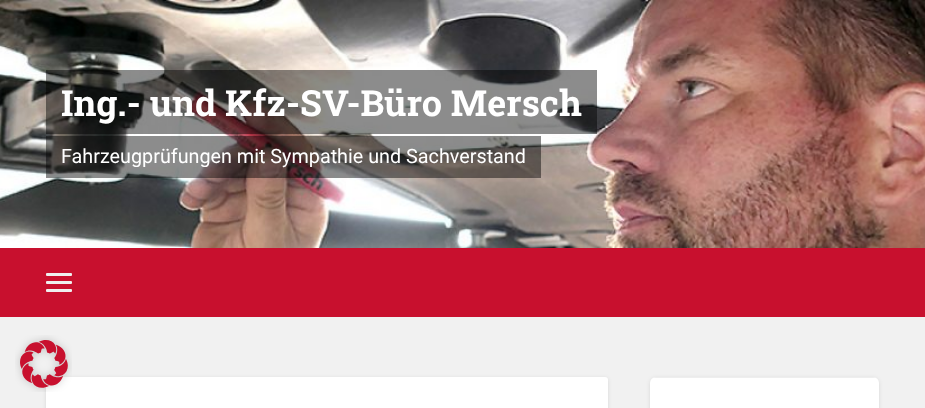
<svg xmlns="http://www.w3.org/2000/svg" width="925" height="408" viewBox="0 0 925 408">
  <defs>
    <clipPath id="clip1"><rect x="650" y="377" width="229" height="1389" rx="6"/></clipPath>
  </defs>
  <rect width="100%" height="100%" fill="#f1f1f1"/>
  <image x="0" y="0" width="925" height="248" href="img/1.png"/>
  <path d="M46 70h551v64H46z" fill="#00000073"/>
  <path d="M46 136h495v42H46z" fill="#00000073"/>
  <path d="M0 248h925v69H0z" fill="#c8102e"/>
  <rect x="46" y="273" width="26" height="3" rx="1" fill="#efefef"/>
  <rect x="46" y="281" width="26" height="3" rx="1" fill="#efefef"/>
  <rect x="46" y="289" width="26" height="3" rx="1" fill="#efefef"/>
  <rect x="46" y="378" width="562" height="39" rx="3" fill="#0000001a" filter="blur(2px)"/>
  <rect x="46" y="377" width="562" height="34" rx="3" fill="#fff"/>
  <image x="15" y="335" width="57" height="57" href="img/2.png"/>
  <rect x="650" y="378" width="229" height="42" rx="6" fill="#0000001a" filter="blur(2px)"/>
  <rect x="650" y="377" width="229" height="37" rx="6" fill="#fff"/>
  <g clip-path="url(#clip1)">
    <path d="M650 377h229v1H650z" fill="#eee"/>
  </g>
  <text x="61" y="116" font-family="Roboto Slab" font-size="36" font-weight="bold" fill="#fff">Ing.- und Kfz-SV-Büro Mersch</text>
  <text x="61" y="163" font-family="Roboto" font-size="19.8" fill="#fff">Fahrzeugprüfungen mit Sympathie und Sachverstand</text>
</svg>
